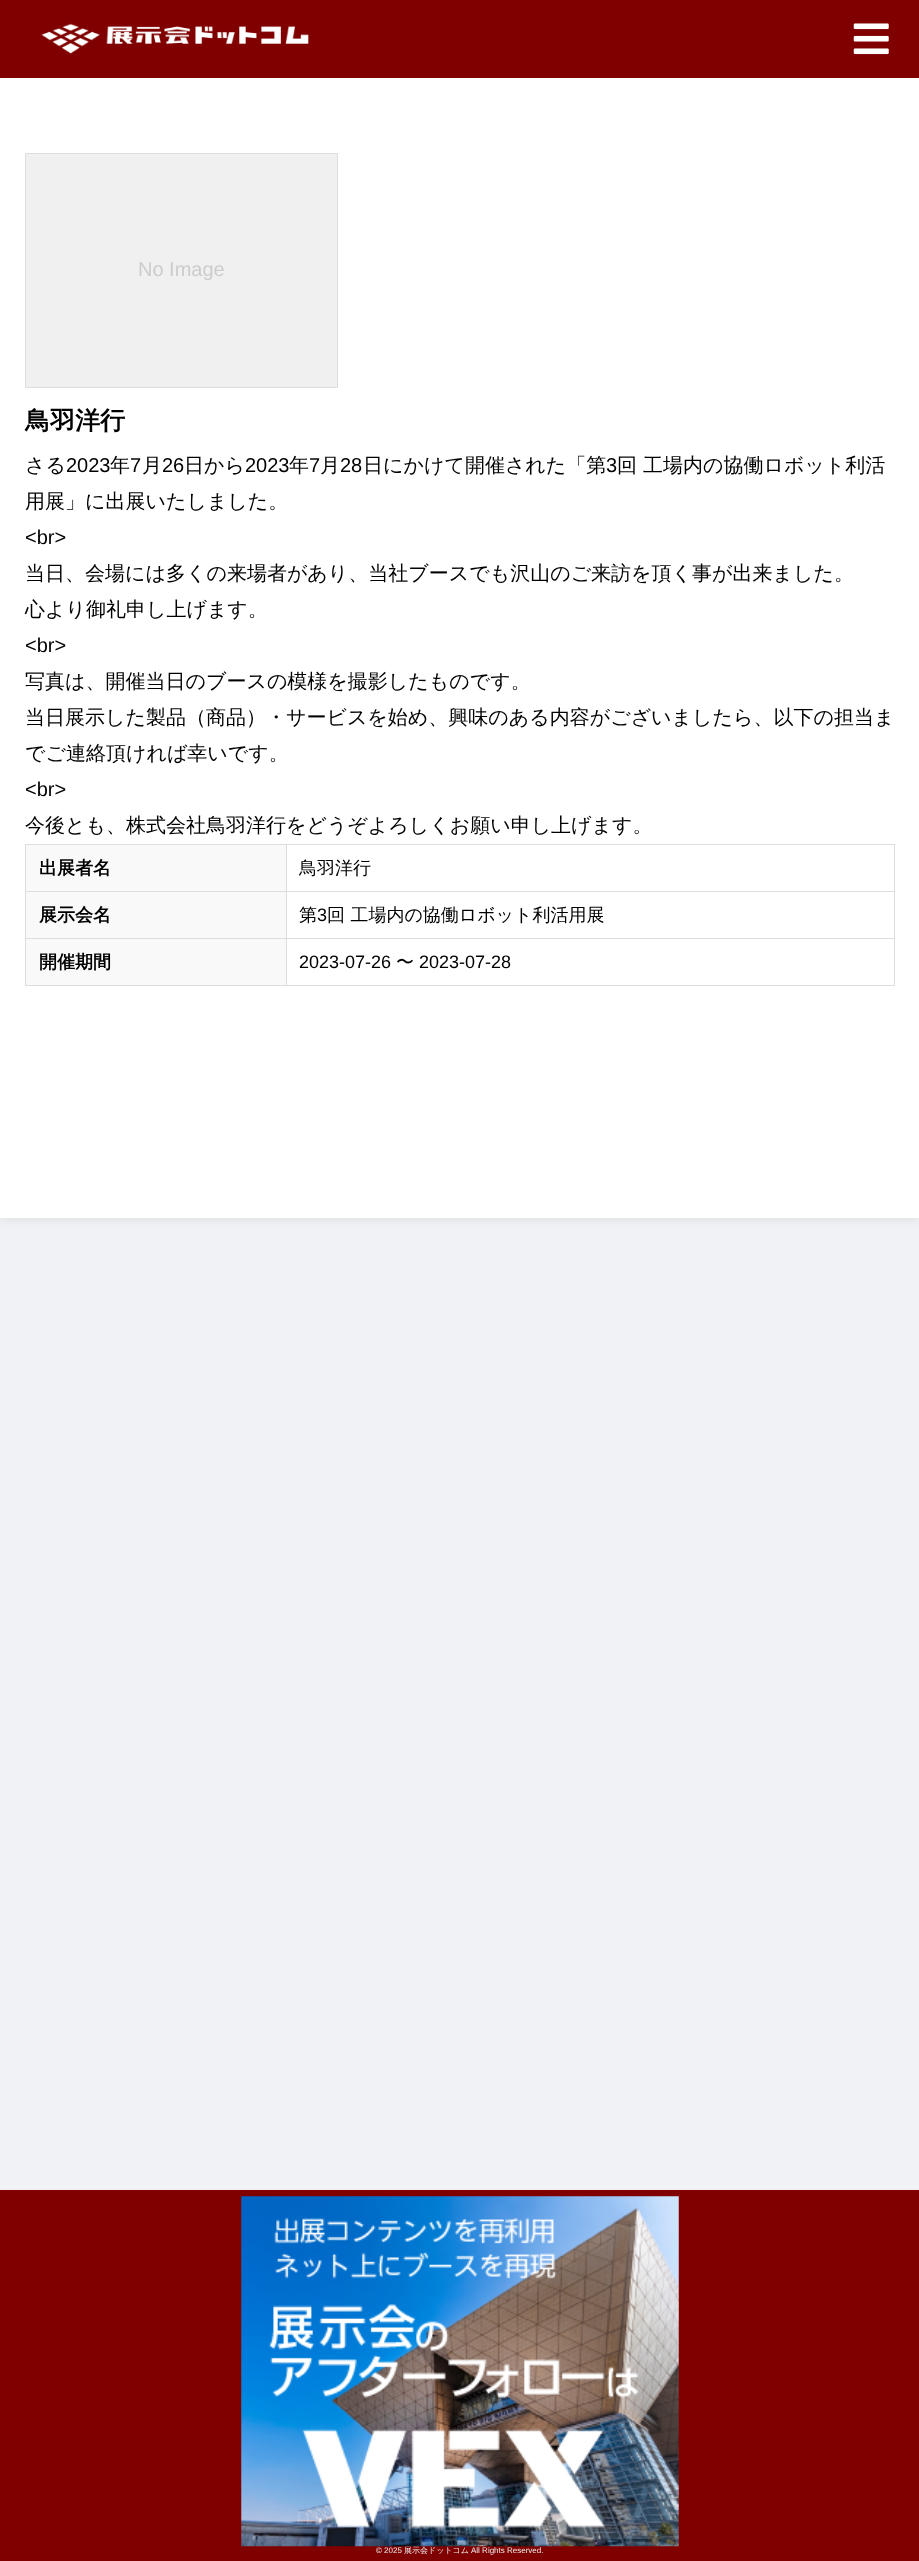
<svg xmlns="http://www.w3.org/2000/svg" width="919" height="2561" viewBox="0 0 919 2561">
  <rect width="100%" height="100%" fill="#f0f2f5"/>
  <path d="M0 78h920v1140H0z" fill="#0000001a" filter="blur(6px)"/>
  <path d="M0 0h919v78H0z" fill="#800000"/>
  <image x="41" y="23" width="268" height="31" href="img/1.png"/>
  <image x="853" y="23" width="36" height="32" href="img/2.png"/>
  <path d="M0 78h919v1140H0z" fill="#fff"/>
  <path d="M25.5 153.5h312v234H25.5z" fill="#f0f0f0" stroke="#ddd"/>
  <path d="M26 845h260v46H26z" fill="#f9f9f9"/>
  <path d="M286 844h609v1H286z" fill="#ddd"/>
  <path d="M286 891h609v1H286z" fill="#ddd"/>
  <path d="M286 938h609v1H286z" fill="#ddd"/>
  <path d="M894 938h1v48H894z" fill="#ddd"/>
  <path d="M286 985h609v1H286z" fill="#ddd"/>
  <path d="M286 938h1v48H286z" fill="#ddd"/>
  <path d="M25 938h263v1H25z" fill="#ddd"/>
  <path d="M286 891h1v48H286z" fill="#ddd"/>
  <path d="M25 891h263v1H25z" fill="#ddd"/>
  <path d="M286 844h1v49H286z" fill="#ddd"/>
  <path d="M25 844h263v1H25z" fill="#ddd"/>
  <path d="M25 985h263v1H25z" fill="#ddd"/>
  <path d="M25 938h1v48H25z" fill="#ddd"/>
  <path d="M25 891h1v48H25z" fill="#ddd"/>
  <path d="M25 844h1v49H25z" fill="#ddd"/>
  <path d="M894 891h1v48H894z" fill="#ddd"/>
  <path d="M894 844h1v49H894z" fill="#ddd"/>
  <path d="M26 892h260v46H26z" fill="#f9f9f9"/>
  <path d="M26 939h260v46H26z" fill="#f9f9f9"/>
  <path d="M0 2190h919v371H0z" fill="#800000"/>
  <path d="M0 2189h919v1H0z" fill="#eee"/>
  <text x="138" y="276" font-family="Liberation Sans" font-size="20" fill="#ccc">No Image</text>
  <text x="25" y="429" font-family="WenQuanYi Zen Hei" font-size="25" font-weight="bold" fill="#000">鳥羽洋行</text>
  <text x="25" y="472" font-family="WenQuanYi Zen Hei" font-size="20" font-weight="500" fill="#000">さる</text>
  <text x="66" y="472" font-family="Liberation Sans" font-size="20" fill="#000">2023</text>
  <text x="110" y="472" font-family="WenQuanYi Zen Hei" font-size="20" font-weight="500" fill="#000">年</text>
  <text x="130" y="472" font-family="Liberation Sans" font-size="20" fill="#000">7</text>
  <text x="142" y="472" font-family="WenQuanYi Zen Hei" font-size="20" font-weight="500" fill="#000">月</text>
  <text x="162" y="472" font-family="Liberation Sans" font-size="20" fill="#000">26</text>
  <text x="184" y="472" font-family="WenQuanYi Zen Hei" font-size="20" font-weight="500" fill="#000">日から</text>
  <text x="245" y="472" font-family="Liberation Sans" font-size="20" fill="#000">2023</text>
  <text x="289" y="472" font-family="WenQuanYi Zen Hei" font-size="20" font-weight="500" fill="#000">年</text>
  <text x="309" y="472" font-family="Liberation Sans" font-size="20" fill="#000">7</text>
  <text x="320" y="472" font-family="WenQuanYi Zen Hei" font-size="20" font-weight="500" fill="#000">月</text>
  <text x="340" y="472" font-family="Liberation Sans" font-size="20" fill="#000">28</text>
  <text x="363" y="472" font-family="WenQuanYi Zen Hei" font-size="20" font-weight="500" fill="#000">日にかけて開催された「第</text>
  <text x="606" y="472" font-family="Liberation Sans" font-size="20" fill="#000">3</text>
  <g font-family="WenQuanYi Zen Hei" font-size="20" font-weight="500" fill="#000">
    <text x="617" y="472">回 工場内の協働ロボット利活</text>
    <text x="25" y="508">用展」に出展いたしました。</text>
  </g>
  <text x="25" y="544" font-family="Liberation Sans" font-size="20" fill="#000">&lt;br&gt;</text>
  <g font-family="WenQuanYi Zen Hei" font-size="20" font-weight="500" fill="#000">
    <text x="25" y="580">当日、会場には多くの来場者があり、当社ブースでも沢山のご来訪を頂く事が出来ました。</text>
    <text x="25" y="616">心より御礼申し上げます。</text>
  </g>
  <text x="25" y="652" font-family="Liberation Sans" font-size="20" fill="#000">&lt;br&gt;</text>
  <g font-family="WenQuanYi Zen Hei" font-size="20" font-weight="500" fill="#000">
    <text x="25" y="688">写真は、開催当日のブースの模様を撮影したものです。</text>
    <text x="25" y="724">当日展示した製品（商品）・サービスを始め、興味のある内容がございましたら、以下の担当ま</text>
    <text x="25" y="760">でご連絡頂ければ幸いです。</text>
  </g>
  <text x="25" y="796" font-family="Liberation Sans" font-size="20" fill="#000">&lt;br&gt;</text>
  <text x="25" y="832" font-family="WenQuanYi Zen Hei" font-size="20" font-weight="500" fill="#000">今後とも、株式会社鳥羽洋行をどうぞよろしくお願い申し上げます。</text>
  <text x="39" y="874" font-family="WenQuanYi Zen Hei" font-size="18" font-weight="bold" fill="#000">出展者名</text>
  <text x="299" y="874" font-family="WenQuanYi Zen Hei" font-size="18" font-weight="500" fill="#000">鳥羽洋行</text>
  <text x="39" y="921" font-family="WenQuanYi Zen Hei" font-size="18" font-weight="bold" fill="#000">展示会名</text>
  <text x="299" y="921" font-family="WenQuanYi Zen Hei" font-size="18" font-weight="500" fill="#000">第</text>
  <text x="317" y="921" font-family="Liberation Sans" font-size="18" fill="#000">3</text>
  <text x="327" y="921" font-family="WenQuanYi Zen Hei" font-size="18" font-weight="500" fill="#000">回 工場内の協働ロボット利活用展</text>
  <text x="39" y="968" font-family="WenQuanYi Zen Hei" font-size="18" font-weight="bold" fill="#000">開催期間</text>
  <text x="299" y="968" font-family="Liberation Sans" font-size="18" fill="#000">2023-07-26</text>
  <text x="396" y="968" font-family="WenQuanYi Zen Hei" font-size="18" font-weight="500" fill="#000">〜</text>
  <text x="419" y="968" font-family="Liberation Sans" font-size="18" fill="#000">2023-07-28</text>
  <text x="376" y="2553" font-family="Liberation Sans" font-size="8" fill="#eee">© 2025</text>
  <text x="404" y="2553" font-family="WenQuanYi Zen Hei" font-size="8" font-weight="500" fill="#eee">展示会ドットコム</text>
  <image x="241" y="2196" width="438" height="351" href="img/3.png"/>
  <text x="471" y="2553" font-family="Liberation Sans" font-size="8" fill="#eee">All Rights Reserved.</text>
</svg>
